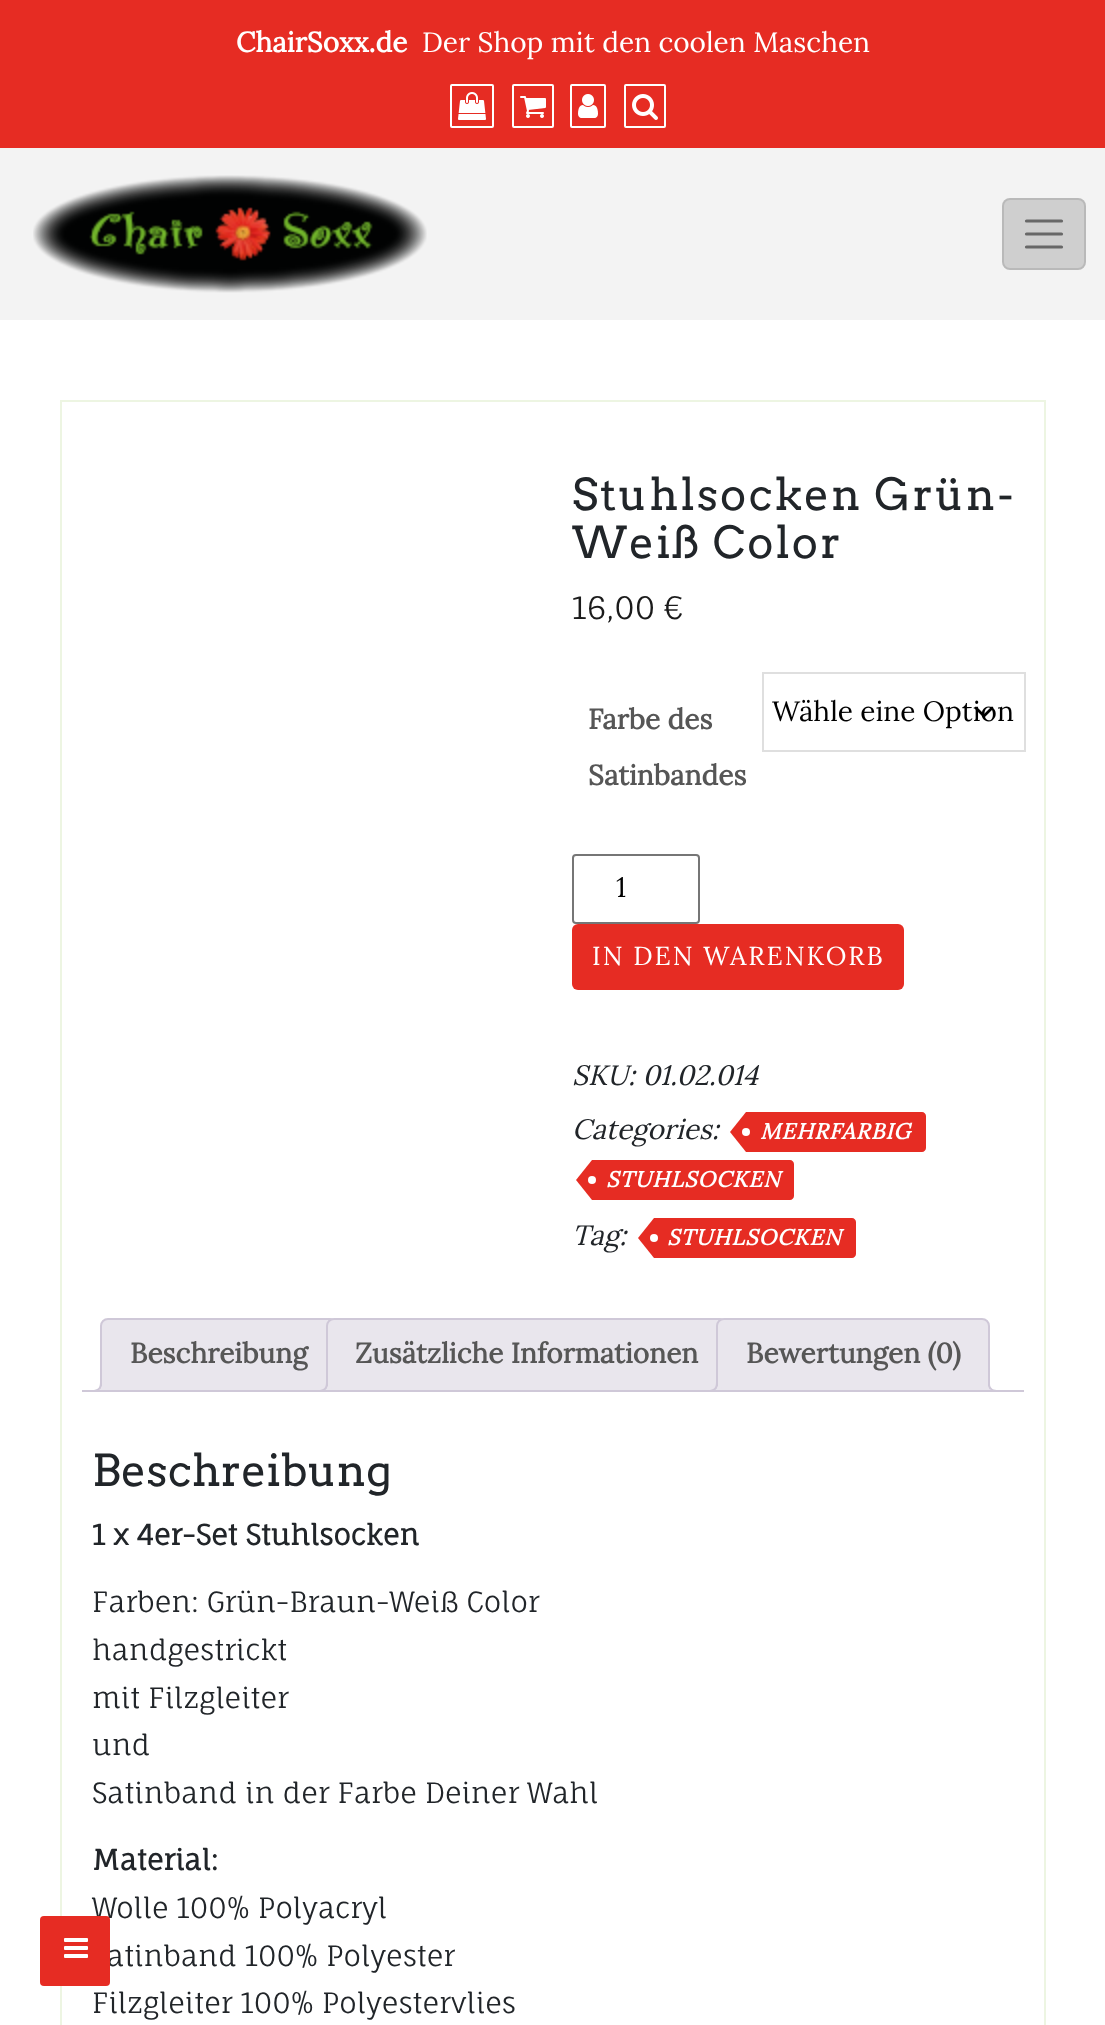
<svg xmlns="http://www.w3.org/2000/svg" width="1105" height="2025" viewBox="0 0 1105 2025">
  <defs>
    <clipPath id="clip1"><path d="M82 1318h942v74H82z"/></clipPath>
  </defs>
  <rect width="100%" height="100%" fill="#fff"/>
  <path d="M0 0h1105v148H0z" fill="#e62c23"/>
  <rect x="451" y="85" width="42" height="42" rx="1" fill="none" stroke="#fff" stroke-width="2"/>
  <image x="458" y="92" width="28" height="28" href="img/1.png"/>
  <rect x="513" y="85" width="40" height="42" rx="1" fill="none" stroke="#fff" stroke-width="2"/>
  <image x="520" y="96" width="26" height="22" href="img/2.png"/>
  <rect x="571" y="85" width="34" height="42" rx="1" fill="none" stroke="#fff" stroke-width="2"/>
  <image x="578" y="94" width="20" height="24" href="img/3.png"/>
  <rect x="625" y="85" width="40" height="42" rx="1" fill="none" stroke="#fff" stroke-width="2"/>
  <image x="632" y="94" width="26" height="26" href="img/4.png"/>
  <path d="M0 148h1105v172H0z" fill="#f3f3f3"/>
  <image x="33" y="175" width="394" height="118" href="img/5.png"/>
  <rect x="1002" y="198" width="84" height="72" rx="8" fill="#cfcfcf"/>
  <rect x="1003" y="199" width="82" height="70" rx="7" fill="none" stroke="#0000001a" stroke-width="2"/>
  <path d="M1026.5 221H1061.5M1026.5 234H1061.5M1026.5 247H1061.5" fill="none" stroke="#686868" stroke-width="3.2" stroke-linecap="round"/>
  <path d="M61 401h984v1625H61z" fill="none" stroke="#edf5e2" stroke-width="2"/>
  <path d="M976 708L984 716L992 708" fill="none" stroke="#000" stroke-width="2.7" stroke-linecap="round" stroke-linejoin="round"/>
  <path d="M763 673h262v78H763z" fill="none" stroke="#dfdfdf" stroke-width="2"/>
  <rect x="573" y="855" width="126" height="68" rx="3" fill="none" stroke="#767676" stroke-width="2"/>
  <rect x="572" y="924" width="332" height="66" rx="6" fill="#e62c23"/>
  <path d="M746 1112H922C924 1112 926 1114 926 1116V1148C926 1150 924 1152 922 1152H746Z" fill="#e62c23"/>
  <path d="M746 1112V1152L730 1132Z" fill="#e62c23"/>
  <circle cx="746" cy="1132" r="4" fill="#fff"/>
  <path d="M592 1160H790C792 1160 794 1162 794 1164V1196C794 1198 792 1200 790 1200H592Z" fill="#e62c23"/>
  <path d="M592 1160V1200L576 1180Z" fill="#e62c23"/>
  <circle cx="592" cy="1180" r="4" fill="#fff"/>
  <path d="M654 1218H852C854 1218 856 1220 856 1222V1254C856 1256 854 1258 852 1258H654Z" fill="#e62c23"/>
  <path d="M654 1218V1258L638 1238Z" fill="#e62c23"/>
  <circle cx="654" cy="1238" r="4" fill="#fff"/>
  <path d="M108 1319H330C334 1319 337 1322 337 1326V1391H101V1326C101 1322 104 1319 108 1319Z" fill="#e9e6ed" stroke="#cfc8d8" stroke-width="2"/>
  <g clip-path="url(#clip1)">
    <path d="M96 1391.5V1396C103 1396 106 1393 106 1386H101.5C101 1389 99 1391 96 1391.5Z" fill="#e9e6ed"/>
  </g>
  <path d="M92 1382H102C102 1389 99 1392 92 1392ZM92 1382H100C100 1388 98 1390 92 1390Z" fill="#cfc8d8" fill-rule="evenodd"/>
  <path d="M334 1319H720C724 1319 727 1322 727 1326V1391H327V1326C327 1322 330 1319 334 1319Z" fill="#e9e6ed" stroke="#cfc8d8" stroke-width="2"/>
  <g clip-path="url(#clip1)">
    <path d="M322 1391.5V1396C329 1396 332 1393 332 1386H327.5C327 1389 325 1391 322 1391.5Z" fill="#e9e6ed"/>
  </g>
  <path d="M318 1382H328C328 1389 325 1392 318 1392ZM318 1382H326C326 1388 324 1390 318 1390Z" fill="#cfc8d8" fill-rule="evenodd"/>
  <path d="M724 1319H982C986 1319 989 1322 989 1326V1391H717V1326C717 1322 720 1319 724 1319Z" fill="#e9e6ed" stroke="#cfc8d8" stroke-width="2"/>
  <g clip-path="url(#clip1)">
    <path d="M712 1391.5V1396C719 1396 722 1393 722 1386H717.5C717 1389 715 1391 712 1391.5Z" fill="#e9e6ed"/>
  </g>
  <path d="M708 1382H718C718 1389 715 1392 708 1392ZM708 1382H716C716 1388 714 1390 708 1390Z" fill="#cfc8d8" fill-rule="evenodd"/>
  <g clip-path="url(#clip1)">
    <path d="M984 1386C984 1393 987 1396 994 1396V1391.5C991 1391 989 1389 988.5 1386Z" fill="#e9e6ed"/>
  </g>
  <path d="M988 1382H998V1392C993 1392 988 1390 988 1384ZM990 1382H998V1390C994 1390 990 1389 990 1384Z" fill="#cfc8d8" fill-rule="evenodd"/>
  <path d="M82 1390h942v2H82z" fill="#cfc8d8"/>
  <text x="236" y="52" font-family="Lora" font-size="28" font-weight="bold" fill="#fff">ChairSoxx.de</text>
  <text x="422" y="52" font-family="Lora" font-size="28" fill="#fff">Der Shop mit den coolen Maschen</text>
  <g font-family="Arvo" font-size="44" letter-spacing="2" fill="#212529">
    <text x="572" y="510">Stuhlsocken Grün-</text>
    <text x="572" y="558">Weiß Color</text>
  </g>
  <text x="572" y="619" font-family="Fauna One" font-size="31" fill="#1b1b1b">16,00 €</text>
  <g font-family="Lora" font-size="28" font-weight="bold" fill="#565656">
    <text x="588" y="729">Farbe des</text>
    <text x="588" y="785">Satinbandes</text>
  </g>
  <g font-family="Lora" font-size="28" fill="#000">
    <text x="772" y="721">Wähle eine Option</text>
    <text x="616" y="897">1</text>
  </g>
  <text x="592" y="965" font-family="Lora" font-size="26" letter-spacing="2" fill="#fff">IN DEN WARENKORB</text>
  <g font-family="Lora" font-size="28" font-style="italic" fill="#212529">
    <text x="572" y="1085">SKU: 01.02.014</text>
    <text x="572" y="1139">Categories:</text>
  </g>
  <g font-family="Lora" font-size="22" font-weight="bold" font-style="italic" letter-spacing="1" fill="#fff">
    <text x="760" y="1139">MEHRFARBIG</text>
    <text x="606" y="1187">STUHLSOCKEN</text>
  </g>
  <text x="572" y="1245" font-family="Lora" font-size="28" font-style="italic" fill="#212529">Tag:</text>
  <text x="667" y="1245" font-family="Lora" font-size="22" font-weight="bold" font-style="italic" letter-spacing="1" fill="#fff">STUHLSOCKEN</text>
  <g font-family="Lora" font-size="28" font-weight="bold" fill="#565656">
    <text x="130" y="1363">Beschreibung</text>
    <text x="355" y="1363">Zusätzliche Informationen</text>
    <text x="746" y="1363">Bewertungen (0)</text>
  </g>
  <text x="92" y="1486" font-family="Arvo" font-size="44" fill="#212529">Beschreibung</text>
  <text x="92" y="1545" font-family="Fauna One" font-size="28" font-weight="bold" fill="#212529">1 x 4er-Set Stuhlsocken</text>
  <g font-family="Fauna One" font-size="28" fill="#212529">
    <text x="92" y="1612">Farben: Grün-Braun-Weiß Color</text>
    <text x="92" y="1660">handgestrickt</text>
    <text x="92" y="1708">mit Filzgleiter</text>
    <text x="92" y="1755">und</text>
    <text x="92" y="1803">Satinband in der Farbe Deiner Wahl</text>
  </g>
  <text x="92" y="1870" font-family="Fauna One" font-size="28" font-weight="bold" fill="#212529">Material:</text>
  <g font-family="Fauna One" font-size="28" fill="#212529">
    <text x="92" y="1918">Wolle 100% Polyacryl</text>
    <text x="107" y="1966">atinband 100% Polyester</text>
  </g>
  <rect x="40" y="1916" width="70" height="70" rx="4" fill="#e62c23"/>
  <image x="64" y="1938" width="24" height="20" href="img/6.png"/>
  <text x="92" y="2013" font-family="Fauna One" font-size="28" fill="#212529">Filzgleiter 100% Polyestervlies</text>
</svg>
